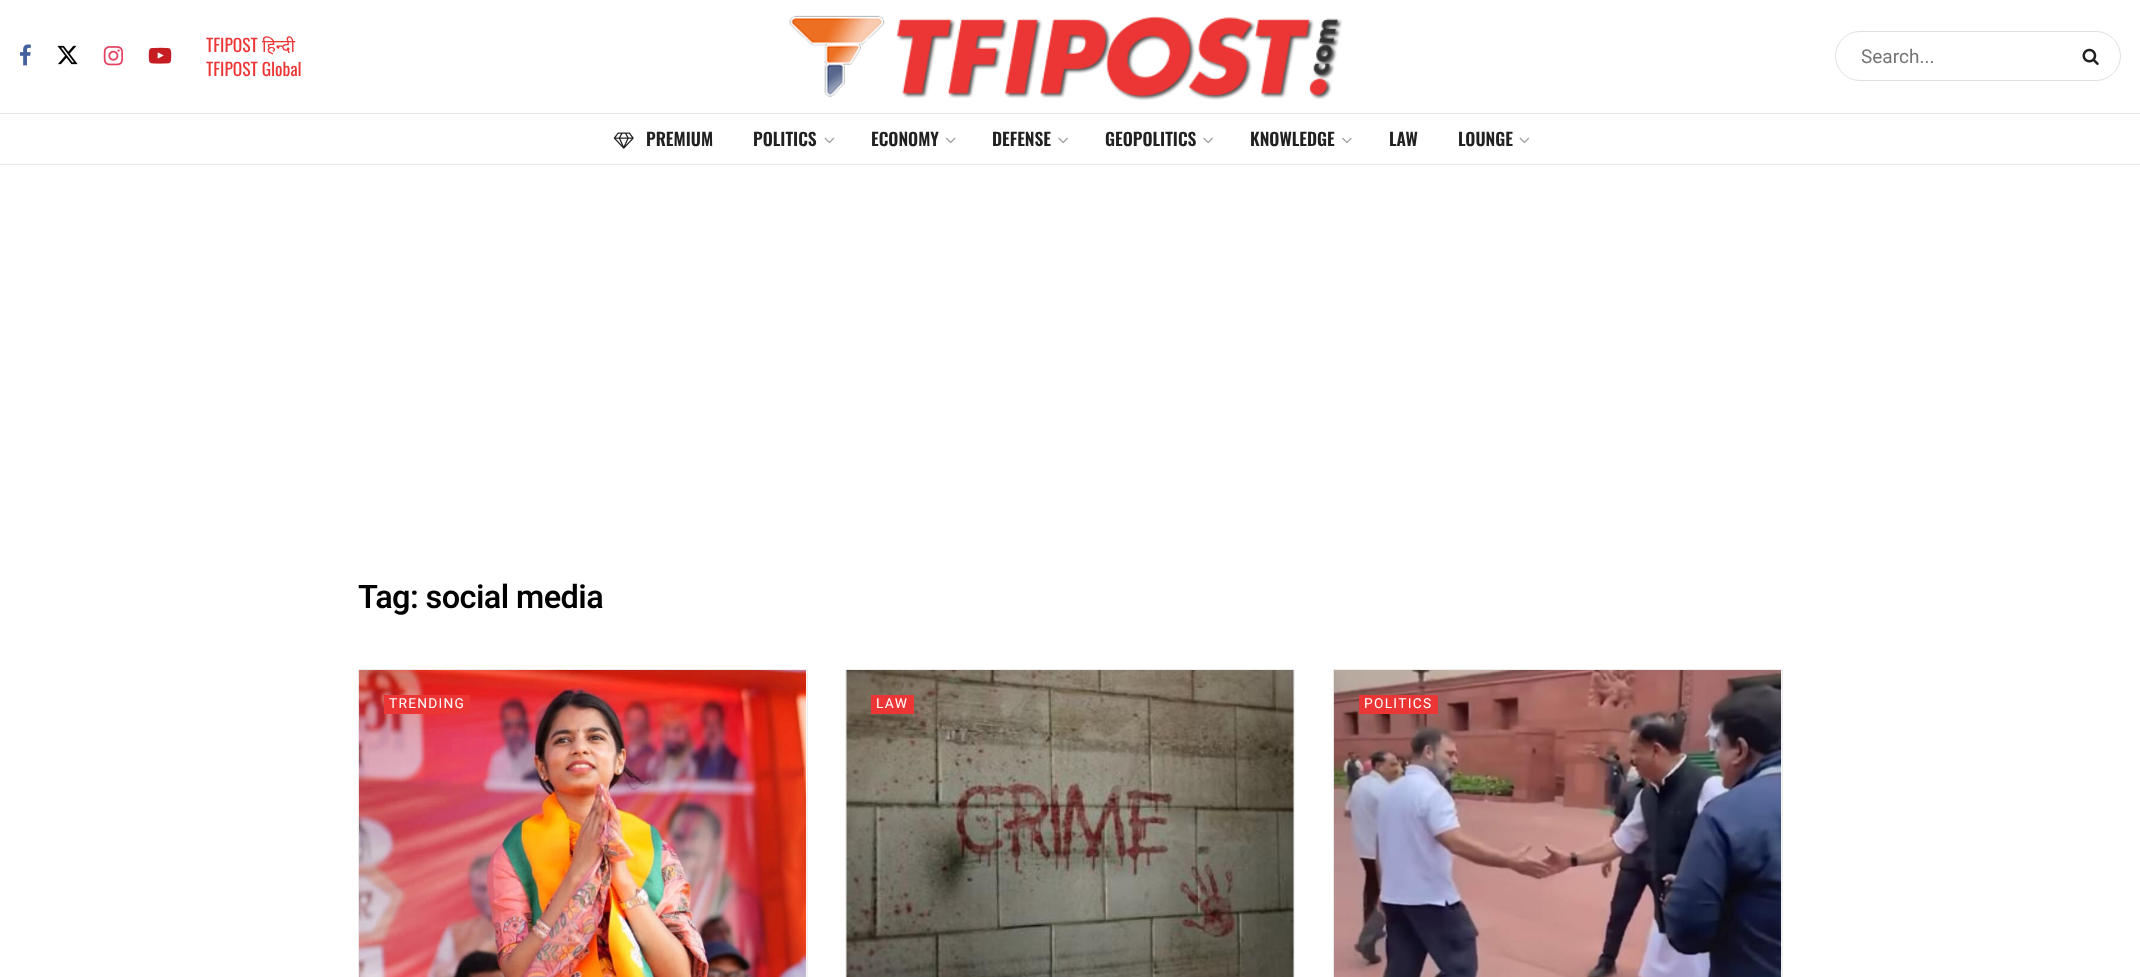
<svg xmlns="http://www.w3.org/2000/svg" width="2140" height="977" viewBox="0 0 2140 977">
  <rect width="100%" height="100%" fill="#fff"/>
  <image x="19" y="44" width="12" height="22" href="img/1.png"/>
  <image x="57" y="45" width="21" height="20" href="img/2.png"/>
  <image x="103" y="46" width="21" height="20" href="img/3.png"/>
  <image x="148" y="47" width="24" height="17" href="img/4.png"/>
  <image x="789" y="15" width="96" height="82" href="img/5.png"/>
  <image x="896" y="16" width="446" height="85" href="img/6.png"/>
  <rect x="1835.5" y="31.5" width="285" height="49" rx="24.5" fill="none" stroke="#e0e0e0"/>
  <image x="2082" y="48" width="17" height="17" href="img/7.png"/>
  <path d="M0 113h2140v1H0z" fill="#e8e8e8"/>
  <path d="M0 164h2140v1H0z" fill="#e8e8e8"/>
  <image x="613" y="132" width="21" height="17" href="img/8.png"/>
  <image x="824" y="137" width="11" height="7" href="img/9.png"/>
  <image x="945" y="137" width="11" height="7" href="img/10.png"/>
  <image x="1058" y="137" width="10" height="7" href="img/11.png"/>
  <image x="1203" y="137" width="10" height="7" href="img/11.png"/>
  <image x="1342" y="137" width="10" height="7" href="img/12.png"/>
  <image x="1519" y="137" width="11" height="7" href="img/9.png"/>
  <path d="M358.5 669.5h449v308H358.5z" fill="none" stroke="#eee"/>
  <image x="358" y="670" width="449" height="307" href="img/13.png"/>
  <path d="M384 695h86v19H384z" fill="#ec3535"/>
  <path d="M845.5 669.5h449v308H845.5z" fill="none" stroke="#eee"/>
  <path d="M846 670h448v307H846z" fill="#f7f7f7"/>
  <image x="846" y="670" width="448" height="307" href="img/14.png"/>
  <path d="M871 695h43v19H871z" fill="#ec3535"/>
  <path d="M1333.5 669.5h449v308H1333.5z" fill="none" stroke="#eee"/>
  <image x="1333" y="670" width="449" height="307" href="img/15.png"/>
  <path d="M1359 695h79v19H1359z" fill="#ec3535"/>
  <text x="206" y="52" font-family="Oswald" font-size="17.5" fill="#ec3535">TFIPOST</text>
  <text x="262" y="52" font-family="Noto Sans" font-size="17.5" fill="#ec3535">हिन्दी</text>
  <text x="206" y="76" font-family="Oswald" font-size="17.5" fill="#ec3535">TFIPOST Global</text>
  <text x="1861" y="63" font-family="Heebo" font-size="19" fill="#757575">Search...</text>
  <g font-family="Oswald" font-size="17.5" font-weight="600" fill="#212121">
    <text x="646" y="146">PREMIUM</text>
    <text x="753" y="146">POLITICS</text>
    <text x="871" y="146">ECONOMY</text>
    <text x="992" y="146">DEFENSE</text>
    <text x="1105" y="146">GEOPOLITICS</text>
    <text x="1250" y="146">KNOWLEDGE</text>
    <text x="1389" y="146">LAW</text>
    <text x="1458" y="146">LOUNGE</text>
  </g>
  <text x="358" y="608" font-family="Heebo" font-size="32.5" font-weight="600" letter-spacing="-0.6" fill="#000">Tag: social media</text>
  <g font-family="Heebo" font-size="13.75" letter-spacing="1.25" fill="#fff">
    <text x="389" y="708">TRENDING</text>
    <text x="876" y="708">LAW</text>
    <text x="1364" y="708">POLITICS</text>
  </g>
</svg>
